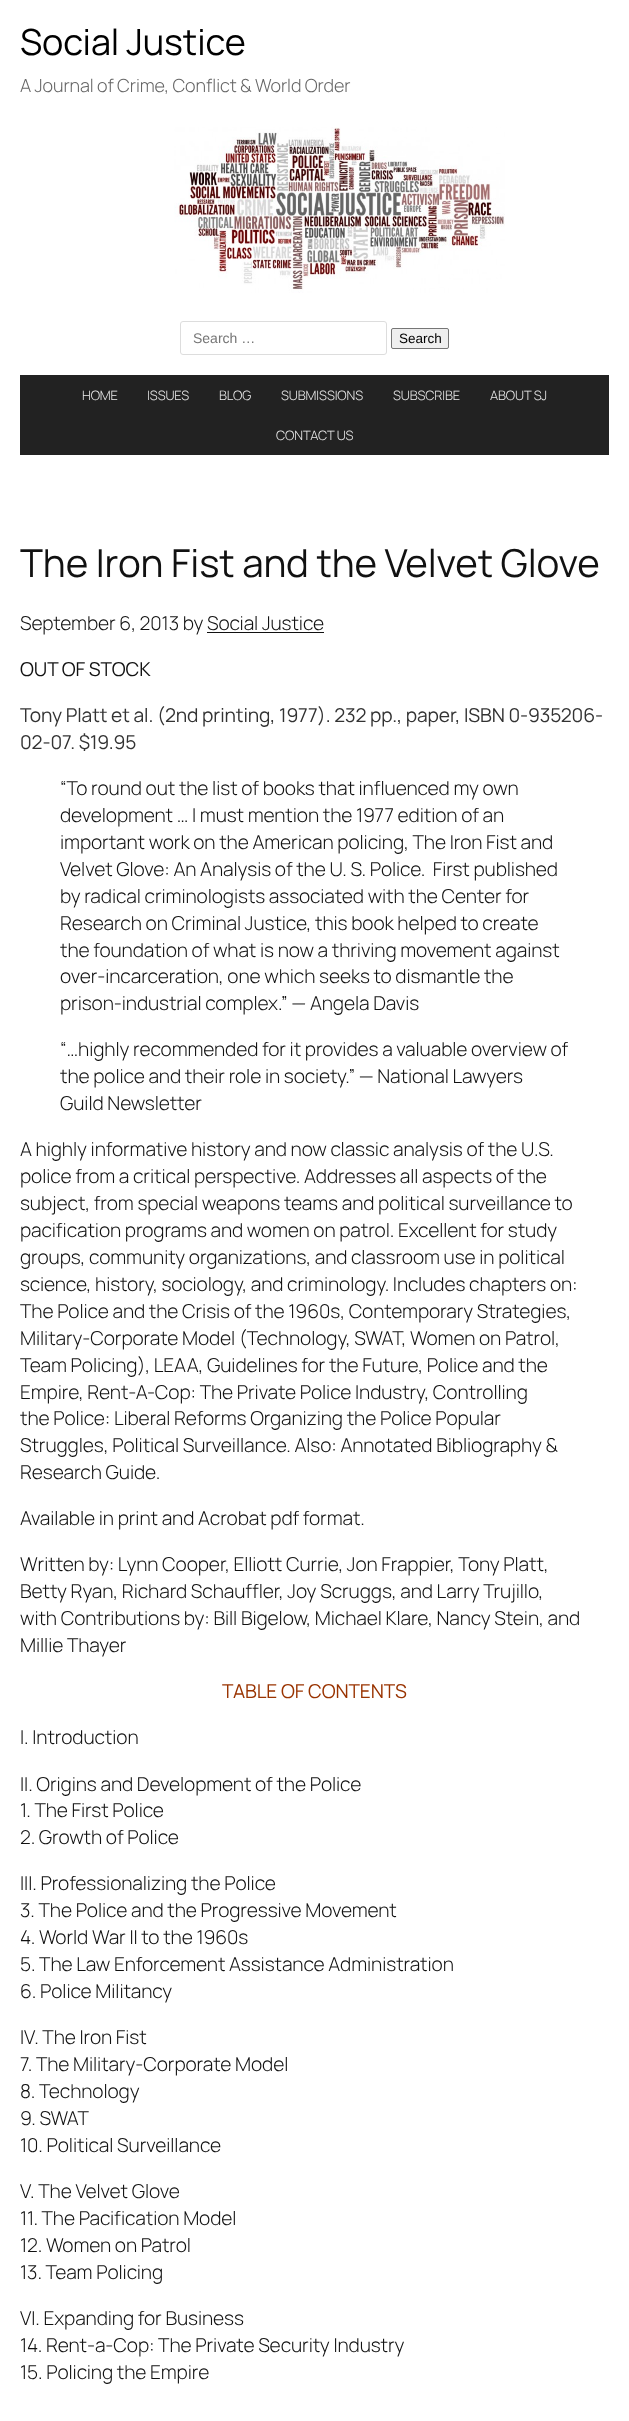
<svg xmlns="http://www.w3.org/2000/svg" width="629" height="2421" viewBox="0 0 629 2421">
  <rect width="100%" height="100%" fill="#fff"/>
  <image x="174" y="127" width="331" height="166" href="img/1.png"/>
  <rect x="180.5" y="321.5" width="206" height="33" rx="2.5" fill="none" stroke="#ddd"/>
  <rect x="391.5" y="328.5" width="57" height="20" rx="1.5" fill="#efefef" stroke="#767676"/>
  <path d="M20 375h589v80H20z" fill="#222"/>
  <path d="M207 632h117v1H207z" fill="#111"/>
  <text x="20" y="55" font-family="Manrope" font-size="36" letter-spacing="-0.1" fill="#000">Social Justice</text>
  <text x="20" y="92" font-family="Manrope" font-size="18" font-weight="300" letter-spacing="-0.1" fill="#666">A Journal of Crime, Conflict &amp; World Order</text>
  <text x="193" y="343" font-family="Liberation Sans" font-size="14" fill="#757575">Search …</text>
  <text x="399" y="343" font-family="Liberation Sans" font-size="13.5" fill="#000">Search</text>
  <g font-family="Manrope" font-size="13" font-weight="300" letter-spacing="-0.1" fill="#eee">
    <text x="82" y="400">HOME</text>
    <text x="147" y="400">ISSUES</text>
    <text x="219" y="400">BLOG</text>
    <text x="281" y="400">SUBMISSIONS</text>
    <text x="393" y="400">SUBSCRIBE</text>
    <text x="490" y="400">ABOUT SJ</text>
    <text x="276" y="440">CONTACT US</text>
  </g>
  <text x="20" y="577" font-family="Manrope" font-size="38.5" letter-spacing="-0.1" fill="#111">The Iron Fist and the Velvet Glove</text>
  <text x="20" y="630" font-family="Manrope" font-size="19.2" font-weight="300" letter-spacing="-0.1" fill="#111">September 6, 2013 by Social Justice</text>
  <text x="20" y="676" font-family="Manrope" font-size="19.2" letter-spacing="-0.1" fill="#111">OUT OF STOCK</text>
  <g font-family="Manrope" font-size="19.2" letter-spacing="-0.1" fill="#333">
    <text x="20" y="722">Tony Platt et al. (2nd printing, 1977). 232 pp., paper, ISBN 0-935206-</text>
    <text x="20" y="749">02-07. $19.95</text>
  </g>
  <g font-family="Manrope" font-size="19.2" font-weight="300" letter-spacing="-0.1" fill="#111">
    <text x="60" y="795">“To round out the list of books that influenced my own</text>
    <text x="60" y="822">development … I must mention the 1977 edition of an</text>
    <text x="60" y="849">important work on the American policing, The Iron Fist and</text>
    <text x="60" y="876" xml:space="preserve">Velvet Glove: An Analysis of the U. S. Police.  First published</text>
    <text x="60" y="903">by radical criminologists associated with the Center for</text>
    <text x="60" y="930">Research on Criminal Justice, this book helped to create</text>
    <text x="60" y="957">the foundation of what is now a thriving movement against</text>
    <text x="60" y="983">over-incarceration, one which seeks to dismantle the</text>
    <text x="60" y="1010">prison-industrial complex.” — Angela Davis</text>
    <text x="60" y="1056">“…highly recommended for it provides a valuable overview of</text>
    <text x="60" y="1083">the police and their role in society.” — National Lawyers</text>
    <text x="60" y="1110">Guild Newsletter</text>
    <text x="20" y="1156">A highly informative history and now classic analysis of the U.S.</text>
    <text x="20" y="1183">police from a critical perspective. Addresses all aspects of the</text>
    <text x="20" y="1210">subject, from special weapons teams and political surveillance to</text>
    <text x="20" y="1237">pacification programs and women on patrol. Excellent for study</text>
    <text x="20" y="1264">groups, community organizations, and classroom use in political</text>
    <text x="20" y="1291">science, history, sociology, and criminology. Includes chapters on:</text>
    <text x="20" y="1318">The Police and the Crisis of the 1960s, Contemporary Strategies,</text>
    <text x="20" y="1345">Military-Corporate Model (Technology, SWAT, Women on Patrol,</text>
    <text x="20" y="1372">Team Policing), LEAA, Guidelines for the Future, Police and the</text>
    <text x="20" y="1399">Empire, Rent-A-Cop: The Private Police Industry, Controlling</text>
    <text x="20" y="1425">the Police: Liberal Reforms Organizing the Police Popular</text>
    <text x="20" y="1452">Struggles, Political Surveillance. Also: Annotated Bibliography &amp;</text>
    <text x="20" y="1479">Research Guide.</text>
    <text x="20" y="1525">Available in print and Acrobat pdf format.</text>
    <text x="20" y="1571">Written by: Lynn Cooper, Elliott Currie, Jon Frappier, Tony Platt,</text>
    <text x="20" y="1598">Betty Ryan, Richard Schauffler, Joy Scruggs, and Larry Trujillo,</text>
    <text x="20" y="1625">with Contributions by: Bill Bigelow, Michael Klare, Nancy Stein, and</text>
    <text x="20" y="1652">Millie Thayer</text>
  </g>
  <text x="222" y="1698" font-family="Manrope" font-size="19.2" letter-spacing="-0.1" fill="#930">TABLE OF CONTENTS</text>
  <g font-family="Manrope" font-size="19.2" font-weight="300" letter-spacing="-0.1" fill="#111">
    <text x="20" y="1744">I. Introduction</text>
    <text x="20" y="1791">II. Origins and Development of the Police</text>
    <text x="20" y="1817">1. The First Police</text>
    <text x="20" y="1844">2. Growth of Police</text>
    <text x="20" y="1890">III. Professionalizing the Police</text>
    <text x="20" y="1917">3. The Police and the Progressive Movement</text>
    <text x="20" y="1944">4. World War II to the 1960s</text>
    <text x="20" y="1971">5. The Law Enforcement Assistance Administration</text>
    <text x="20" y="1998">6. Police Militancy</text>
    <text x="20" y="2044">IV. The Iron Fist</text>
    <text x="20" y="2071">7. The Military-Corporate Model</text>
    <text x="20" y="2098">8. Technology</text>
    <text x="20" y="2125">9. SWAT</text>
    <text x="20" y="2152">10. Political Surveillance</text>
    <text x="20" y="2198">V. The Velvet Glove</text>
    <text x="20" y="2225">11. The Pacification Model</text>
    <text x="20" y="2252">12. Women on Patrol</text>
    <text x="20" y="2279">13. Team Policing</text>
    <text x="20" y="2325">VI. Expanding for Business</text>
    <text x="20" y="2352">14. Rent-a-Cop: The Private Security Industry</text>
    <text x="20" y="2379">15. Policing the Empire</text>
  </g>
</svg>
